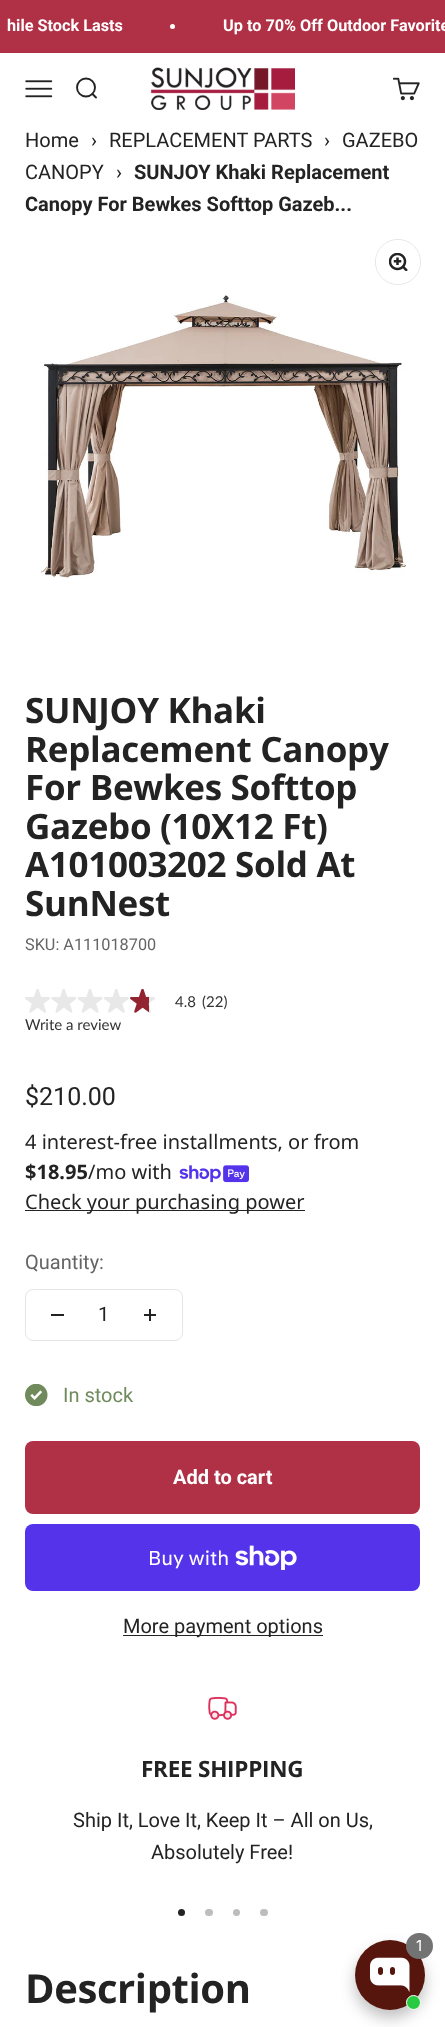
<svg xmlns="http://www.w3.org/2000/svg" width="445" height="2027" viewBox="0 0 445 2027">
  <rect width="100%" height="100%" fill="#fff"/>
  <path d="M0 0h445v53H0z" fill="#b03046"/>
  <circle cx="172.5" cy="26.5" r="2.5" fill="#fff"/>
  <image x="25" y="80" width="28" height="18" href="img/1.png"/>
  <circle cx="86" cy="87.5" r="9" fill="none" stroke="#232323" stroke-width="1.9"/>
  <path d="M92.5 94L96 97.5" fill="none" stroke="#232323" stroke-width="1.9" stroke-linecap="round" stroke-linejoin="round"/>
  <image x="151" y="67" width="144" height="43" href="img/2.png"/>
  <image x="393" y="77" width="27" height="24" href="img/3.png"/>
  <circle cx="398" cy="262" r="22.5" fill="none" stroke="#e5e5e5"/>
  <circle cx="398" cy="262" r="22" fill="#fff"/>
  <image x="389" y="253" width="19" height="18" href="img/4.png"/>
  <image x="40" y="295" width="366" height="283" href="img/5.png"/>
  <image x="25" y="989" width="25" height="24" href="img/6.png"/>
  <image x="51" y="989" width="25" height="24" href="img/7.png"/>
  <image x="77" y="989" width="26" height="24" href="img/8.png"/>
  <image x="104" y="989" width="25" height="24" href="img/9.png"/>
  <image x="130" y="989" width="25" height="24" href="img/10.png"/>
  <image x="179" y="1165" width="70" height="18" href="img/11.png"/>
  <path d="M25 1210h280v1H25z" fill="#232323"/>
  <rect x="25.5" y="1289.5" width="157" height="51" rx="7.5" fill="none" stroke="#e5e5e5"/>
  <path d="M51 1314h13v2H51z" fill="#232323"/>
  <path d="M149 1309h2v12H149z" fill="#232323"/>
  <path d="M144 1314h12v2H144z" fill="#232323"/>
  <image x="25" y="1384" width="23" height="22" href="img/12.png"/>
  <rect x="25" y="1441" width="395" height="73" rx="8" fill="#b03046"/>
  <rect x="25" y="1524" width="395" height="67" rx="8" fill="#5433eb"/>
  <image x="235" y="1545" width="62" height="25" href="img/13.png"/>
  <path d="M123 1635h200v1H123z" fill="#232323"/>
  <image x="208" y="1696" width="29" height="24" href="img/14.png"/>
  <circle cx="181.5" cy="1912.5" r="3.5" fill="#232323"/>
  <rect x="205" y="1909" width="8" height="7" rx="3.5" fill="#bdbdbd"/>
  <circle cx="236.5" cy="1912.5" r="3.5" fill="#bdbdbd"/>
  <rect x="260" y="1909" width="8" height="7" rx="3.5" fill="#bdbdbd"/>
  <rect x="355" y="1948" width="70" height="70" rx="35" fill="#00000040" filter="blur(7.5px)"/>
  <circle cx="390" cy="1975" r="35" fill="#56160d"/>
  <image x="370" y="1957" width="40" height="35" href="img/15.png"/>
  <circle cx="413.5" cy="2002.5" r="7" fill="#27ca40" stroke="#fff"/>
  <rect x="406" y="1933" width="27" height="26" rx="13" fill="#737373"/>
  <g font-family="Roboto" font-size="16.25" font-weight="bold" fill="#fff">
    <text x="7" y="31">hile Stock Lasts</text>
    <text x="223" y="31">Up to 70% Off Outdoor Favorite</text>
  </g>
  <g font-family="Roboto" font-size="20" fill="#232323">
    <text x="25" y="147">Home</text>
    <text x="91" y="147">›</text>
    <text x="109" y="147">REPLACEMENT PARTS</text>
    <text x="324" y="147">›</text>
    <text x="342" y="147">GAZEBO</text>
    <text x="25" y="179">CANOPY</text>
    <text x="116" y="179">›</text>
  </g>
  <g font-family="Roboto" font-size="20" font-weight="bold" fill="#232323">
    <text x="134" y="179">SUNJOY Khaki Replacement</text>
    <text x="25" y="211">Canopy For Bewkes Softtop Gazeb...</text>
  </g>
  <g font-family="Open Sans" font-size="35" font-weight="bold" letter-spacing="-0.3" fill="#232323">
    <text x="25" y="723">SUNJOY Khaki</text>
    <text x="25" y="762">Replacement Canopy</text>
    <text x="25" y="800">For Bewkes Softtop</text>
    <text x="25" y="839">Gazebo (10X12 Ft)</text>
    <text x="25" y="877">A101003202 Sold At</text>
    <text x="25" y="916">SunNest</text>
  </g>
  <text x="25" y="950" font-family="Roboto" font-size="16.25" fill="#656565">SKU: A111018700</text>
  <g font-family="Lato" font-size="15" fill="#333">
    <text x="175" y="1007">4.8</text>
    <text x="202" y="1007">(22)</text>
    <text x="25" y="1030">Write a review</text>
  </g>
  <text x="25" y="1105" font-family="Roboto" font-size="25" fill="#232323">$210.00</text>
  <text x="25" y="1149" font-family="Noto Sans" font-size="20" fill="#232323">4 interest-free installments, or from</text>
  <text x="25" y="1179" font-family="Noto Sans" font-size="20" font-weight="bold" fill="#232323">$18.95</text>
  <g font-family="Noto Sans" font-size="20" fill="#232323">
    <text x="88" y="1179">/mo with</text>
    <text x="25" y="1209">Check your purchasing power</text>
  </g>
  <text x="25" y="1269" font-family="Roboto" font-size="20" fill="#656565">Quantity:</text>
  <text x="98" y="1321" font-family="Roboto" font-size="20" fill="#232323">1</text>
  <text x="63" y="1402" font-family="Roboto" font-size="20" fill="#708a5c">In stock</text>
  <text x="173" y="1484" font-family="Roboto" font-size="20" font-weight="bold" fill="#fff">Add to cart</text>
  <text x="148" y="1565" font-family="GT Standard" font-size="20" fill="#fff">Buy with</text>
  <text x="123" y="1633" font-family="Roboto" font-size="20" fill="#232323">More payment options</text>
  <text x="141" y="1777" font-family="Open Sans" font-size="22.5" font-weight="bold" letter-spacing="-0.25" fill="#232323">FREE SHIPPING</text>
  <g font-family="Roboto" font-size="20" fill="#232323">
    <text x="73" y="1827">Ship It, Love It, Keep It – All on Us,</text>
    <text x="151" y="1859">Absolutely Free!</text>
  </g>
  <text x="25" y="2003" font-family="Open Sans" font-size="40" font-weight="bold" letter-spacing="-0.4" fill="#232323">Description</text>
  <text x="416" y="1951" font-family="Inter" font-size="15" fill="#fff">1</text>
</svg>
